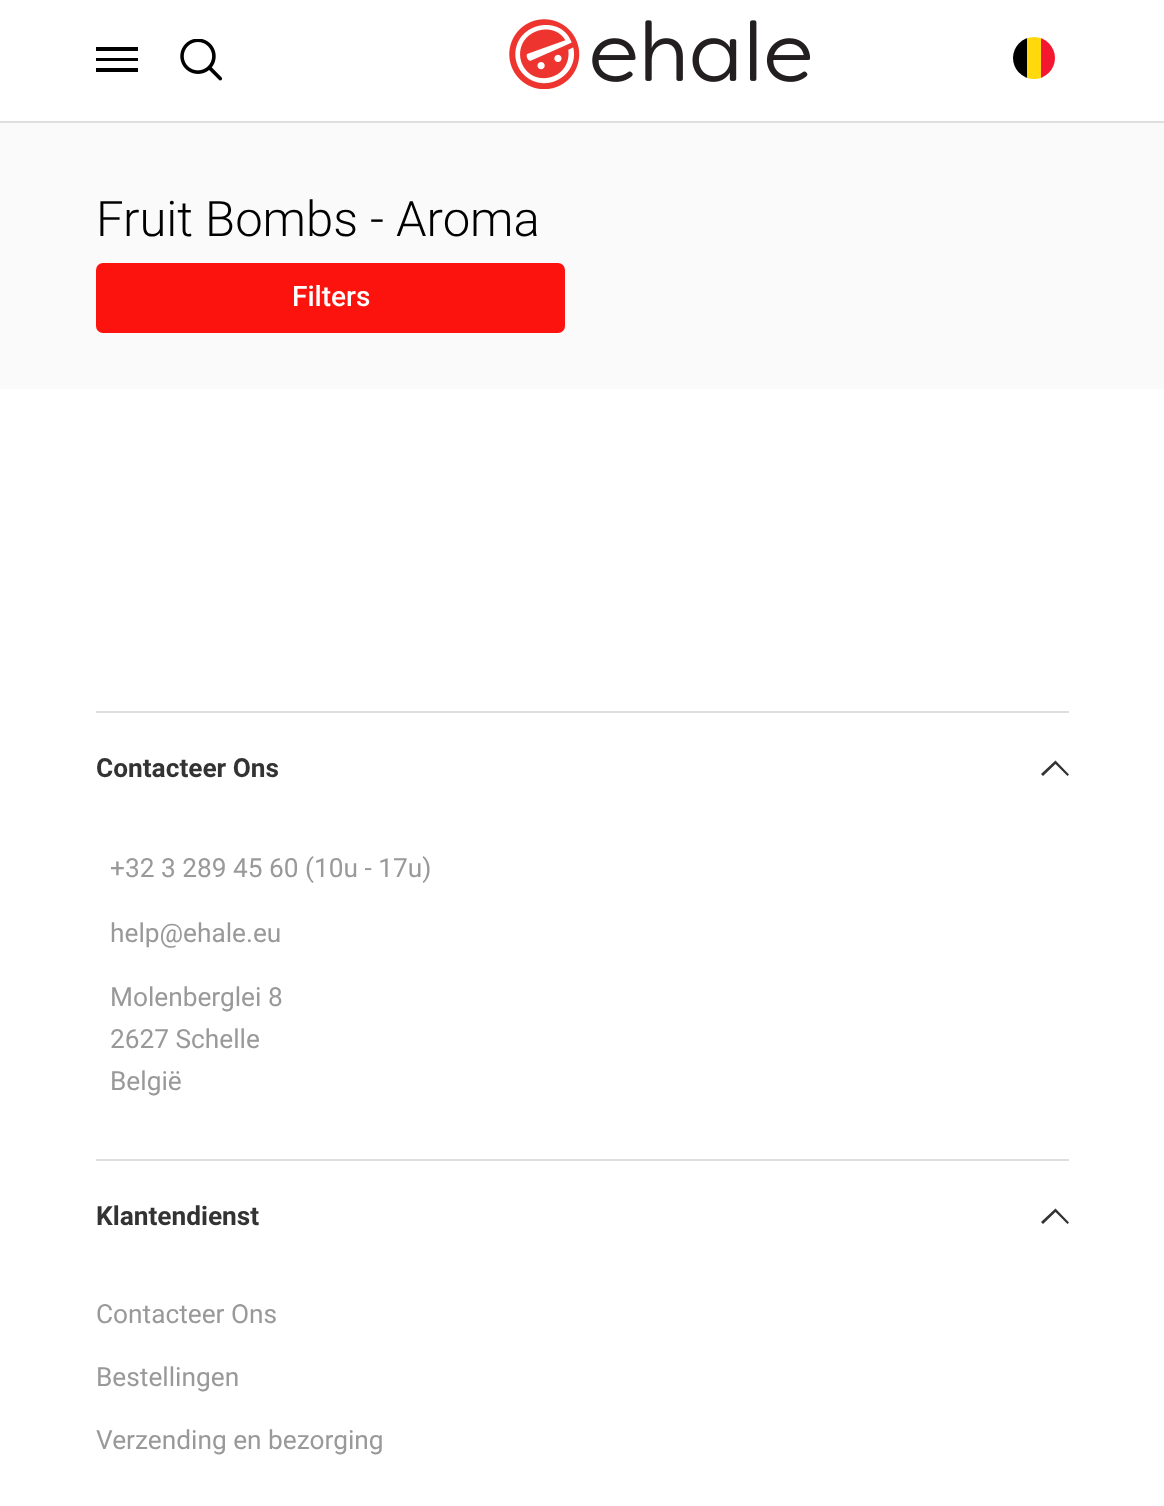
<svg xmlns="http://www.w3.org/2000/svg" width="1164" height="1506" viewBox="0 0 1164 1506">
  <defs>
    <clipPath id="clip1"><rect x="1013" y="37" width="42" height="42" rx="21"/></clipPath>
  </defs>
  <rect width="100%" height="100%" fill="#fff"/>
  <path d="M0 121h1164v2H0z" fill="#dedede"/>
  <path d="M96 51H138V47H96ZM96 61H138V58H96ZM96 72H138V68H96Z" fill="#000"/>
  <image x="180" y="39" width="42" height="42" href="img/1.png"/>
  <image x="509" y="19" width="301" height="70" href="img/2.png"/>
  <g clip-path="url(#clip1)">
    <path d="M1013 38h14v40H1013z" fill="#000"/>
    <path d="M1027 37h14v42H1027z" fill="#ffd90c"/>
    <path d="M1041 38h14v40H1041z" fill="#f31830"/>
  </g>
  <path d="M0 123h1164v266H0z" fill="#fafafa"/>
  <rect x="96" y="263" width="469" height="70" rx="7" fill="#fd130d"/>
  <path d="M96 711h973v2H96z" fill="#dedede"/>
  <path d="M1055.5 760.5L1041 774L1043 776L1055.5 764L1067.5 776L1069 774.5Z" fill="#333"/>
  <path d="M96 1159h973v2H96z" fill="#dedede"/>
  <path d="M1055.5 1208.5L1041 1222L1043 1224L1055.5 1212L1067.5 1224L1069 1222.5Z" fill="#333"/>
  <text x="96" y="236" font-family="Roboto" font-size="49" font-weight="300" fill="#000">Fruit Bombs - Aroma</text>
  <text x="292" y="306" font-family="Roboto" font-size="28" font-weight="500" fill="#fff">Filters</text>
  <text x="96" y="777" font-family="Roboto" font-size="26.25" font-weight="bold" fill="#333">Contacteer Ons</text>
  <g font-family="Roboto" font-size="26.25" fill="#999">
    <text x="110" y="877">+32 3 289 45 60 (10u - 17u)</text>
    <text x="110" y="942">help@ehale.eu</text>
    <text x="110" y="1006">Molenberglei 8</text>
    <text x="110" y="1048">2627 Schelle</text>
    <text x="110" y="1090">België</text>
  </g>
  <text x="96" y="1225" font-family="Roboto" font-size="26.25" font-weight="bold" fill="#333">Klantendienst</text>
  <g font-family="Roboto" font-size="26.25" fill="#999">
    <text x="96" y="1323">Contacteer Ons</text>
    <text x="96" y="1386">Bestellingen</text>
    <text x="96" y="1449">Verzending en bezorging</text>
  </g>
</svg>
